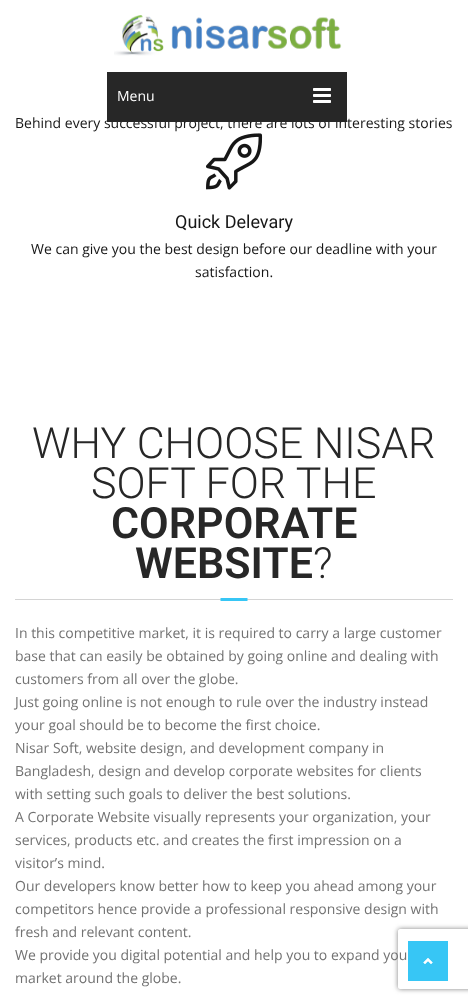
<svg xmlns="http://www.w3.org/2000/svg" width="468" height="1003" viewBox="0 0 468 1003">
  <defs>
    <clipPath id="clip1"><path d="M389 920H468V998H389ZM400 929H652C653 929 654 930 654 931V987C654 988 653 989 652 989H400C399 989 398 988 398 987V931C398 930 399 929 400 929Z" clip-rule="evenodd"/></clipPath>
  </defs>
  <rect width="100%" height="100%" fill="#fff"/>
  <image x="114" y="15" width="228" height="41" href="img/1.png"/>
  <image x="206" y="133" width="57" height="57" href="img/3.png"/>
  <image x="15" y="598" width="438" height="3" href="img/4.png"/>
  <g clip-path="url(#clip1)">
    <rect x="398" y="929" width="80" height="60" rx="2" fill="#808080" filter="blur(2.5px)"/>
  </g>
  <path d="M408 941h40v40H408z" fill="#37c6f5"/>
  <image x="423" y="958" width="10" height="6" href="img/5.png"/>
  <text x="15" y="128" font-family="Open Sans" font-size="14" fill="#161616">Behind every successful project, there are lots of interesting stories</text>
  <path d="M107 72h240v50H107z" fill="#272727"/>
  <text x="117" y="101" font-family="Open Sans" font-size="14" fill="#fff">Menu</text>
  <image x="313" y="88" width="18" height="15" href="img/2.png"/>
  <text x="175" y="228" font-family="Roboto" font-size="18" fill="#161616">Quick Delevary</text>
  <g font-family="Open Sans" font-size="14" fill="#161616">
    <text x="31" y="254">We can give you the best design before our deadline with your</text>
    <text x="195" y="277">satisfaction.</text>
  </g>
  <g font-family="Roboto" font-size="43" font-weight="300" fill="#272727">
    <text x="32" y="458">WHY CHOOSE NISAR</text>
    <text x="91" y="498">SOFT FOR THE</text>
  </g>
  <g font-family="Roboto" font-size="43" font-weight="600" fill="#272727">
    <text x="111" y="538">CORPORATE</text>
    <text x="135" y="578">WEBSITE</text>
  </g>
  <text x="313" y="578" font-family="Roboto" font-size="43" font-weight="300" fill="#272727">?</text>
  <g font-family="Open Sans" font-size="14" fill="#727272">
    <text x="15" y="638">In this competitive market, it is required to carry a large customer</text>
    <text x="15" y="661">base that can easily be obtained by going online and dealing with</text>
    <text x="15" y="684">customers from all over the globe.</text>
    <text x="15" y="707">Just going online is not enough to rule over the industry instead</text>
    <text x="15" y="730">your goal should be to become the first choice.</text>
    <text x="15" y="753">Nisar Soft, website design, and development company in</text>
    <text x="15" y="776">Bangladesh, design and develop corporate websites for clients</text>
    <text x="15" y="799">with setting such goals to deliver the best solutions.</text>
    <text x="15" y="822">A Corporate Website visually represents your organization, your</text>
    <text x="15" y="845">services, products etc. and creates the first impression on a</text>
    <text x="15" y="868">visitor’s mind.</text>
    <text x="15" y="891">Our developers know better how to keep you ahead among your</text>
    <text x="15" y="914">competitors hence provide a professional responsive design with</text>
    <text x="15" y="937">fresh and relevant content.</text>
    <text x="15" y="960">We provide you digital potential and help you to expand you</text>
    <text x="15" y="983">market around the globe.</text>
  </g>
</svg>
